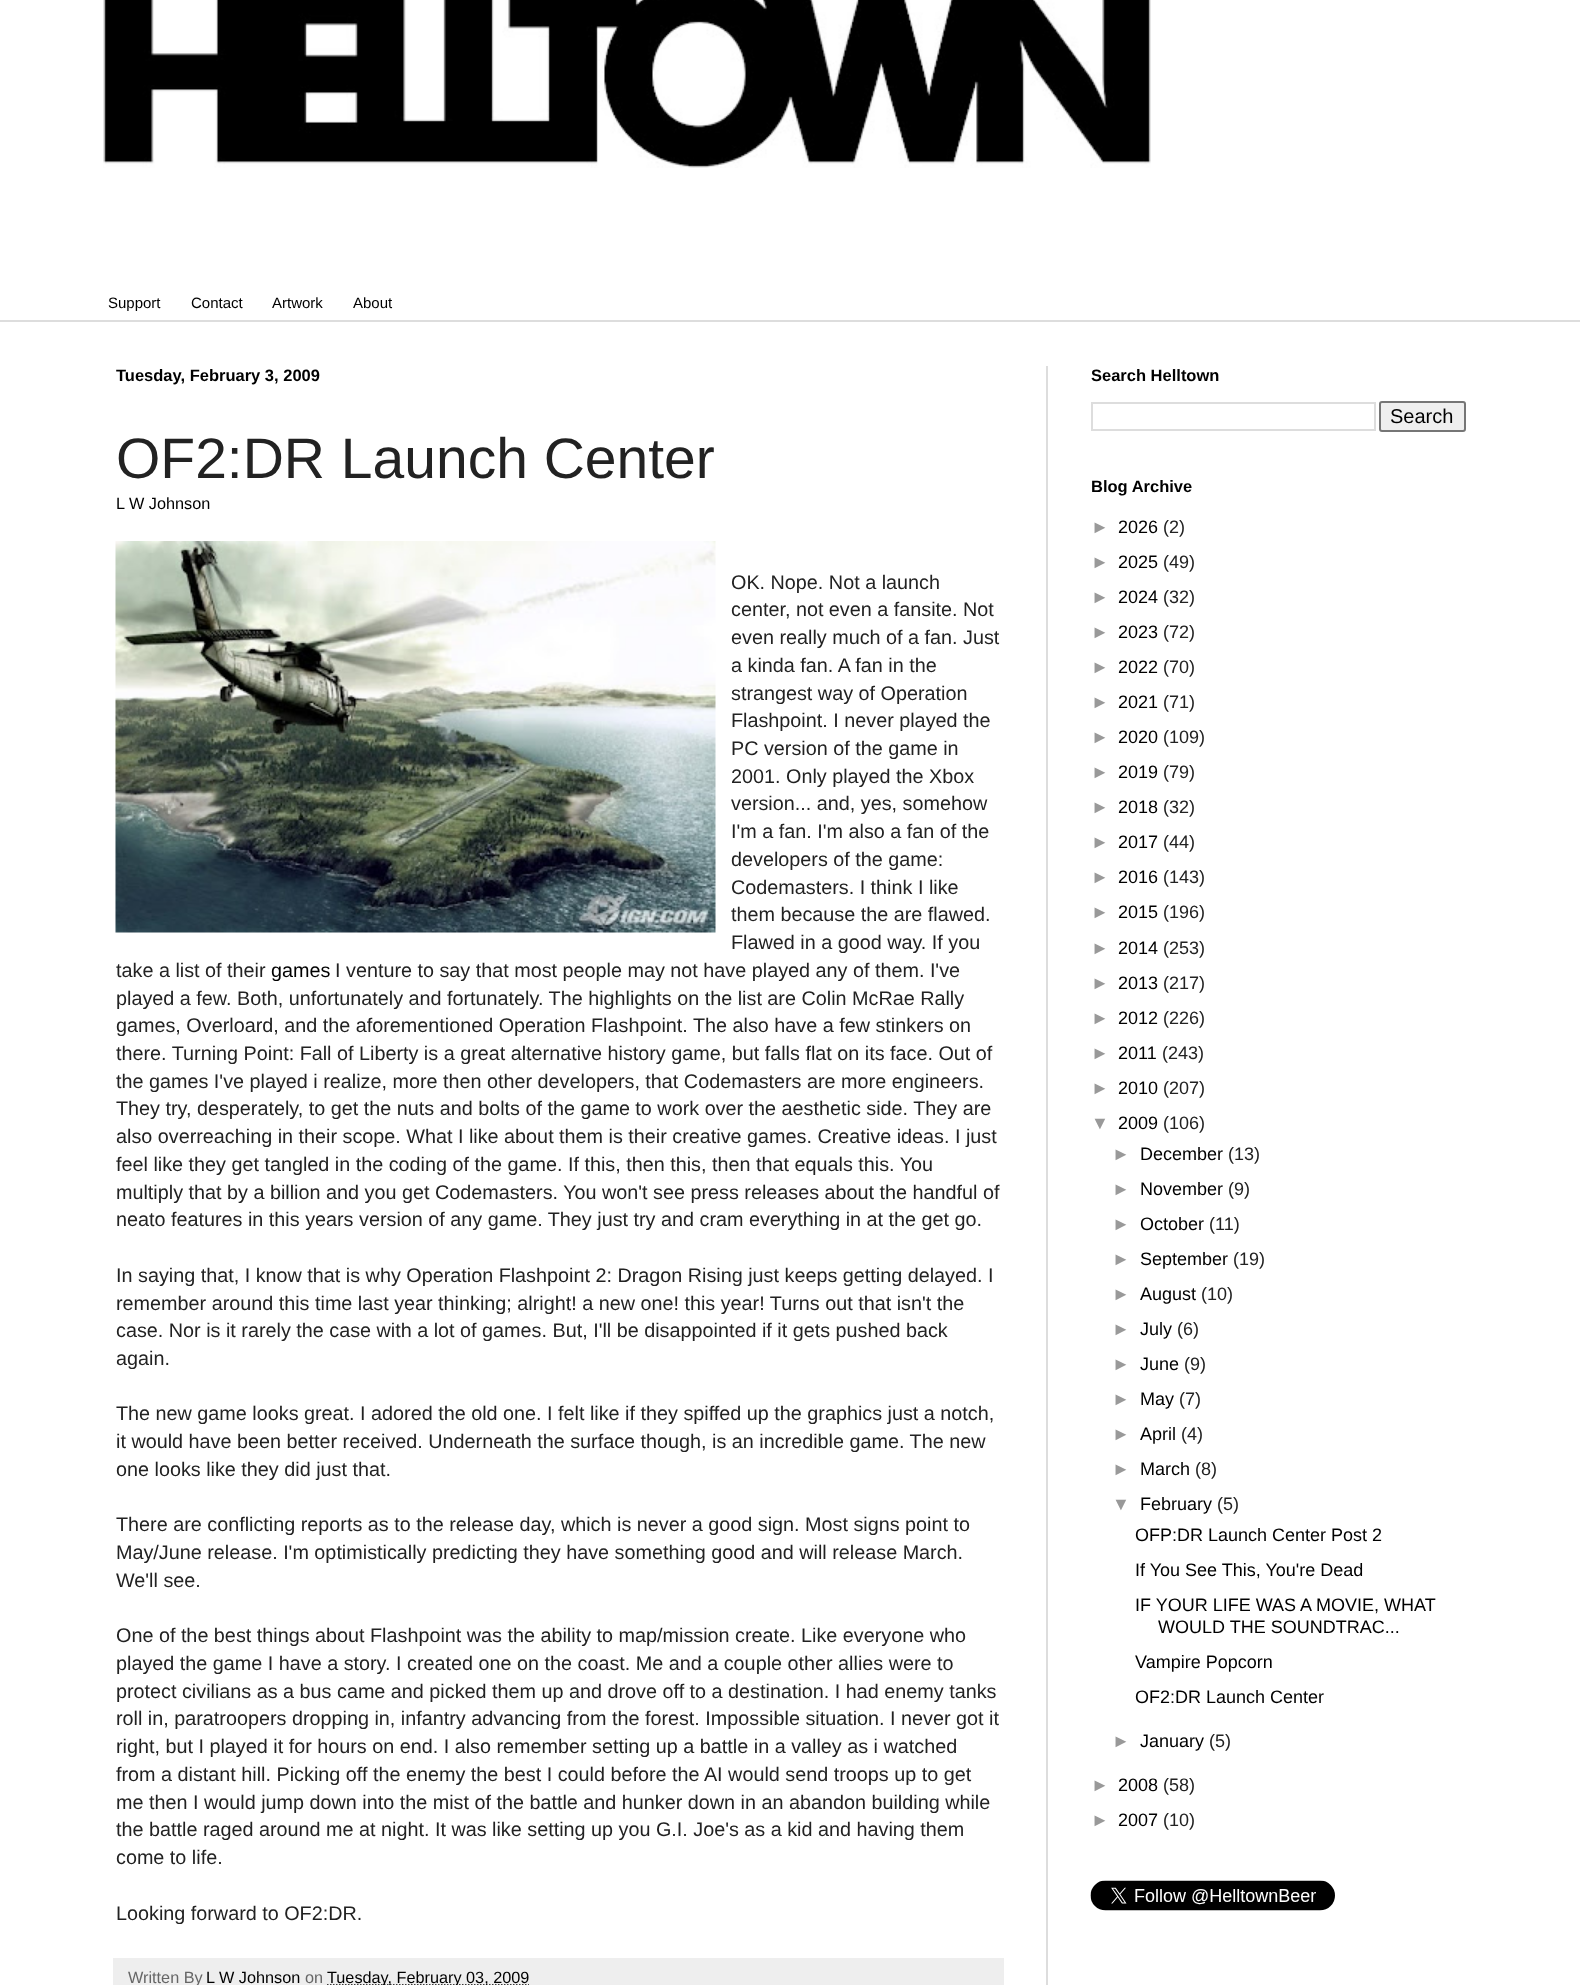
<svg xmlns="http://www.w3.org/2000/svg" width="1580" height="1985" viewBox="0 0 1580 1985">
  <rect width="100%" height="100%" fill="#fff"/>
  <image x="103" y="0" width="1048" height="168" href="img/1.png"/>
  <path d="M0 320h1580v2H0z" fill="#ddd"/>
  <path d="M1046 366h2v1619H1046z" fill="#ddd"/>
  <image x="115" y="541" width="601" height="392" href="img/2.png"/>
  <path d="M113 1958h891v27H113z" fill="#eee"/>
  <path d="M327 1985H529" fill="none" stroke="#000" stroke-width="1.5" stroke-dasharray="1.5 1.5"/>
  <path d="M1092 403h283v27H1092z" fill="none" stroke="#ddd" stroke-width="2"/>
  <rect x="1380" y="402" width="85" height="29" rx="2" fill="#efefef" stroke="#767676" stroke-width="2"/>
  <image x="1090" y="1880" width="245" height="31" href="img/3.png"/>
  <g font-family="Liberation Sans" font-size="15" fill="#000">
    <text x="108" y="308">Support</text>
    <text x="191" y="308">Contact</text>
    <text x="272" y="308">Artwork</text>
    <text x="353" y="308">About</text>
  </g>
  <text x="116" y="381" font-family="Liberation Sans" font-size="16.5" font-weight="bold" fill="#000">Tuesday, February 3, 2009</text>
  <text x="116" y="478" font-family="Liberation Sans" font-size="57" fill="#222">OF2:DR Launch Center</text>
  <text x="116" y="509" font-family="Liberation Sans" font-size="16.25" fill="#000">L W Johnson</text>
  <g font-family="Liberation Sans" font-size="19.8" fill="#222">
    <text x="731" y="589">OK. Nope. Not a launch</text>
    <text x="731" y="616">center, not even a fansite. Not</text>
    <text x="731" y="644">even really much of a fan. Just</text>
    <text x="731" y="672">a kinda fan. A fan in the</text>
    <text x="731" y="700">strangest way of Operation</text>
    <text x="731" y="727">Flashpoint. I never played the</text>
    <text x="731" y="755">PC version of the game in</text>
    <text x="731" y="783">2001. Only played the Xbox</text>
    <text x="731" y="810">version... and, yes, somehow</text>
    <text x="731" y="838">I'm a fan. I'm also a fan of the</text>
    <text x="731" y="866">developers of the game:</text>
    <text x="731" y="894">Codemasters. I think I like</text>
    <text x="731" y="921">them because the are flawed.</text>
    <text x="731" y="949">Flawed in a good way. If you</text>
    <text x="116" y="977">take a list of their</text>
  </g>
  <text x="271" y="977" font-family="Liberation Sans" font-size="19.8" fill="#000">games</text>
  <g font-family="Liberation Sans" font-size="19.8" fill="#222">
    <text x="335" y="977">I venture to say that most people may not have played any of them. I've</text>
    <text x="116" y="1005">played a few. Both, unfortunately and fortunately. The highlights on the list are Colin McRae Rally</text>
    <text x="116" y="1032">games, Overloard, and the aforementioned Operation Flashpoint. The also have a few stinkers on</text>
    <text x="116" y="1060">there. Turning Point: Fall of Liberty is a great alternative history game, but falls flat on its face. Out of</text>
    <text x="116" y="1088">the games I've played i realize, more then other developers, that Codemasters are more engineers.</text>
    <text x="116" y="1115">They try, desperately, to get the nuts and bolts of the game to work over the aesthetic side. They are</text>
    <text x="116" y="1143">also overreaching in their scope. What I like about them is their creative games. Creative ideas. I just</text>
    <text x="116" y="1171">feel like they get tangled in the coding of the game. If this, then this, then that equals this. You</text>
    <text x="116" y="1199">multiply that by a billion and you get Codemasters. You won't see press releases about the handful of</text>
    <text x="116" y="1226">neato features in this years version of any game. They just try and cram everything in at the get go.</text>
    <text x="116" y="1282">In saying that, I know that is why Operation Flashpoint 2: Dragon Rising just keeps getting delayed. I</text>
    <text x="116" y="1310">remember around this time last year thinking; alright! a new one! this year! Turns out that isn't the</text>
    <text x="116" y="1337">case. Nor is it rarely the case with a lot of games. But, I'll be disappointed if it gets pushed back</text>
    <text x="116" y="1365">again.</text>
    <text x="116" y="1420">The new game looks great. I adored the old one. I felt like if they spiffed up the graphics just a notch,</text>
    <text x="116" y="1448">it would have been better received. Underneath the surface though, is an incredible game. The new</text>
    <text x="116" y="1476">one looks like they did just that.</text>
    <text x="116" y="1531">There are conflicting reports as to the release day, which is never a good sign. Most signs point to</text>
    <text x="116" y="1559">May/June release. I'm optimistically predicting they have something good and will release March.</text>
    <text x="116" y="1587">We'll see.</text>
    <text x="116" y="1642">One of the best things about Flashpoint was the ability to map/mission create. Like everyone who</text>
    <text x="116" y="1670">played the game I have a story. I created one on the coast. Me and a couple other allies were to</text>
    <text x="116" y="1698">protect civilians as a bus came and picked them up and drove off to a destination. I had enemy tanks</text>
    <text x="116" y="1725">roll in, paratroopers dropping in, infantry advancing from the forest. Impossible situation. I never got it</text>
    <text x="116" y="1753">right, but I played it for hours on end. I also remember setting up a battle in a valley as i watched</text>
    <text x="116" y="1781">from a distant hill. Picking off the enemy the best I could before the AI would send troops up to get</text>
    <text x="116" y="1809">me then I would jump down into the mist of the battle and hunker down in an abandon building while</text>
    <text x="116" y="1836">the battle raged around me at night. It was like setting up you G.I. Joe's as a kid and having them</text>
    <text x="116" y="1864">come to life.</text>
    <text x="116" y="1920">Looking forward to OF2:DR.</text>
  </g>
  <text x="128" y="1983" font-family="Liberation Sans" font-size="16.25" fill="#666">Written By</text>
  <text x="206" y="1983" font-family="Liberation Sans" font-size="16.25" fill="#000">L W Johnson</text>
  <text x="305" y="1983" font-family="Liberation Sans" font-size="16.25" fill="#666">on</text>
  <text x="327" y="1983" font-family="Liberation Sans" font-size="16.25" fill="#000">Tuesday, February 03, 2009</text>
  <text x="1091" y="381" font-family="Liberation Sans" font-size="16.5" font-weight="bold" fill="#000">Search Helltown</text>
  <text x="1390" y="423" font-family="Liberation Sans" font-size="20" fill="#000">Search</text>
  <text x="1091" y="492" font-family="Liberation Sans" font-size="16.5" font-weight="bold" fill="#000">Blog Archive</text>
  <text x="1091" y="533" font-family="Liberation Sans" font-size="18" fill="#999">►</text>
  <text x="1118" y="533" font-family="Liberation Sans" font-size="18" fill="#000">2026</text>
  <text x="1163" y="533" font-family="Liberation Sans" font-size="18" fill="#222">(2)</text>
  <text x="1091" y="568" font-family="Liberation Sans" font-size="18" fill="#999">►</text>
  <text x="1118" y="568" font-family="Liberation Sans" font-size="18" fill="#000">2025</text>
  <text x="1163" y="568" font-family="Liberation Sans" font-size="18" fill="#222">(49)</text>
  <text x="1091" y="603" font-family="Liberation Sans" font-size="18" fill="#999">►</text>
  <text x="1118" y="603" font-family="Liberation Sans" font-size="18" fill="#000">2024</text>
  <text x="1163" y="603" font-family="Liberation Sans" font-size="18" fill="#222">(32)</text>
  <text x="1091" y="638" font-family="Liberation Sans" font-size="18" fill="#999">►</text>
  <text x="1118" y="638" font-family="Liberation Sans" font-size="18" fill="#000">2023</text>
  <text x="1163" y="638" font-family="Liberation Sans" font-size="18" fill="#222">(72)</text>
  <text x="1091" y="673" font-family="Liberation Sans" font-size="18" fill="#999">►</text>
  <text x="1118" y="673" font-family="Liberation Sans" font-size="18" fill="#000">2022</text>
  <text x="1163" y="673" font-family="Liberation Sans" font-size="18" fill="#222">(70)</text>
  <text x="1091" y="708" font-family="Liberation Sans" font-size="18" fill="#999">►</text>
  <text x="1118" y="708" font-family="Liberation Sans" font-size="18" fill="#000">2021</text>
  <text x="1163" y="708" font-family="Liberation Sans" font-size="18" fill="#222">(71)</text>
  <text x="1091" y="743" font-family="Liberation Sans" font-size="18" fill="#999">►</text>
  <text x="1118" y="743" font-family="Liberation Sans" font-size="18" fill="#000">2020</text>
  <text x="1163" y="743" font-family="Liberation Sans" font-size="18" fill="#222">(109)</text>
  <text x="1091" y="778" font-family="Liberation Sans" font-size="18" fill="#999">►</text>
  <text x="1118" y="778" font-family="Liberation Sans" font-size="18" fill="#000">2019</text>
  <text x="1163" y="778" font-family="Liberation Sans" font-size="18" fill="#222">(79)</text>
  <text x="1091" y="813" font-family="Liberation Sans" font-size="18" fill="#999">►</text>
  <text x="1118" y="813" font-family="Liberation Sans" font-size="18" fill="#000">2018</text>
  <text x="1163" y="813" font-family="Liberation Sans" font-size="18" fill="#222">(32)</text>
  <text x="1091" y="848" font-family="Liberation Sans" font-size="18" fill="#999">►</text>
  <text x="1118" y="848" font-family="Liberation Sans" font-size="18" fill="#000">2017</text>
  <text x="1163" y="848" font-family="Liberation Sans" font-size="18" fill="#222">(44)</text>
  <text x="1091" y="883" font-family="Liberation Sans" font-size="18" fill="#999">►</text>
  <text x="1118" y="883" font-family="Liberation Sans" font-size="18" fill="#000">2016</text>
  <text x="1163" y="883" font-family="Liberation Sans" font-size="18" fill="#222">(143)</text>
  <text x="1091" y="918" font-family="Liberation Sans" font-size="18" fill="#999">►</text>
  <text x="1118" y="918" font-family="Liberation Sans" font-size="18" fill="#000">2015</text>
  <text x="1163" y="918" font-family="Liberation Sans" font-size="18" fill="#222">(196)</text>
  <text x="1091" y="954" font-family="Liberation Sans" font-size="18" fill="#999">►</text>
  <text x="1118" y="954" font-family="Liberation Sans" font-size="18" fill="#000">2014</text>
  <text x="1163" y="954" font-family="Liberation Sans" font-size="18" fill="#222">(253)</text>
  <text x="1091" y="989" font-family="Liberation Sans" font-size="18" fill="#999">►</text>
  <text x="1118" y="989" font-family="Liberation Sans" font-size="18" fill="#000">2013</text>
  <text x="1163" y="989" font-family="Liberation Sans" font-size="18" fill="#222">(217)</text>
  <text x="1091" y="1024" font-family="Liberation Sans" font-size="18" fill="#999">►</text>
  <text x="1118" y="1024" font-family="Liberation Sans" font-size="18" fill="#000">2012</text>
  <text x="1163" y="1024" font-family="Liberation Sans" font-size="18" fill="#222">(226)</text>
  <text x="1091" y="1059" font-family="Liberation Sans" font-size="18" fill="#999">►</text>
  <text x="1118" y="1059" font-family="Liberation Sans" font-size="18" fill="#000">2011</text>
  <text x="1162" y="1059" font-family="Liberation Sans" font-size="18" fill="#222">(243)</text>
  <text x="1091" y="1094" font-family="Liberation Sans" font-size="18" fill="#999">►</text>
  <text x="1118" y="1094" font-family="Liberation Sans" font-size="18" fill="#000">2010</text>
  <text x="1163" y="1094" font-family="Liberation Sans" font-size="18" fill="#222">(207)</text>
  <text x="1091" y="1129" font-family="Liberation Sans" font-size="18" fill="#999">▼</text>
  <text x="1118" y="1129" font-family="Liberation Sans" font-size="18" fill="#000">2009</text>
  <text x="1163" y="1129" font-family="Liberation Sans" font-size="18" fill="#222">(106)</text>
  <text x="1112" y="1160" font-family="Liberation Sans" font-size="18" fill="#999">►</text>
  <text x="1140" y="1160" font-family="Liberation Sans" font-size="18" fill="#000">December</text>
  <text x="1228" y="1160" font-family="Liberation Sans" font-size="18" fill="#222">(13)</text>
  <text x="1112" y="1195" font-family="Liberation Sans" font-size="18" fill="#999">►</text>
  <text x="1140" y="1195" font-family="Liberation Sans" font-size="18" fill="#000">November</text>
  <text x="1228" y="1195" font-family="Liberation Sans" font-size="18" fill="#222">(9)</text>
  <text x="1112" y="1230" font-family="Liberation Sans" font-size="18" fill="#999">►</text>
  <text x="1140" y="1230" font-family="Liberation Sans" font-size="18" fill="#000">October</text>
  <text x="1209" y="1230" font-family="Liberation Sans" font-size="18" fill="#222">(11)</text>
  <text x="1112" y="1265" font-family="Liberation Sans" font-size="18" fill="#999">►</text>
  <text x="1140" y="1265" font-family="Liberation Sans" font-size="18" fill="#000">September</text>
  <text x="1233" y="1265" font-family="Liberation Sans" font-size="18" fill="#222">(19)</text>
  <text x="1112" y="1300" font-family="Liberation Sans" font-size="18" fill="#999">►</text>
  <text x="1140" y="1300" font-family="Liberation Sans" font-size="18" fill="#000">August</text>
  <text x="1201" y="1300" font-family="Liberation Sans" font-size="18" fill="#222">(10)</text>
  <text x="1112" y="1335" font-family="Liberation Sans" font-size="18" fill="#999">►</text>
  <text x="1140" y="1335" font-family="Liberation Sans" font-size="18" fill="#000">July</text>
  <text x="1177" y="1335" font-family="Liberation Sans" font-size="18" fill="#222">(6)</text>
  <text x="1112" y="1370" font-family="Liberation Sans" font-size="18" fill="#999">►</text>
  <text x="1140" y="1370" font-family="Liberation Sans" font-size="18" fill="#000">June</text>
  <text x="1184" y="1370" font-family="Liberation Sans" font-size="18" fill="#222">(9)</text>
  <text x="1112" y="1405" font-family="Liberation Sans" font-size="18" fill="#999">►</text>
  <text x="1140" y="1405" font-family="Liberation Sans" font-size="18" fill="#000">May</text>
  <text x="1179" y="1405" font-family="Liberation Sans" font-size="18" fill="#222">(7)</text>
  <text x="1112" y="1440" font-family="Liberation Sans" font-size="18" fill="#999">►</text>
  <text x="1140" y="1440" font-family="Liberation Sans" font-size="18" fill="#000">April</text>
  <text x="1181" y="1440" font-family="Liberation Sans" font-size="18" fill="#222">(4)</text>
  <text x="1112" y="1475" font-family="Liberation Sans" font-size="18" fill="#999">►</text>
  <text x="1140" y="1475" font-family="Liberation Sans" font-size="18" fill="#000">March</text>
  <text x="1195" y="1475" font-family="Liberation Sans" font-size="18" fill="#222">(8)</text>
  <text x="1112" y="1510" font-family="Liberation Sans" font-size="18" fill="#999">▼</text>
  <text x="1140" y="1510" font-family="Liberation Sans" font-size="18" fill="#000">February</text>
  <text x="1217" y="1510" font-family="Liberation Sans" font-size="18" fill="#222">(5)</text>
  <g font-family="Liberation Sans" font-size="18" fill="#000">
    <text x="1135" y="1541">OFP:DR Launch Center Post 2</text>
    <text x="1135" y="1576">If You See This, You're Dead</text>
    <text x="1135" y="1611">IF YOUR LIFE WAS A MOVIE, WHAT</text>
    <text x="1158" y="1633">WOULD THE SOUNDTRAC...</text>
    <text x="1135" y="1668">Vampire Popcorn</text>
    <text x="1135" y="1703">OF2:DR Launch Center</text>
  </g>
  <text x="1112" y="1747" font-family="Liberation Sans" font-size="18" fill="#999">►</text>
  <text x="1140" y="1747" font-family="Liberation Sans" font-size="18" fill="#000">January</text>
  <text x="1209" y="1747" font-family="Liberation Sans" font-size="18" fill="#222">(5)</text>
  <text x="1091" y="1791" font-family="Liberation Sans" font-size="18" fill="#999">►</text>
  <text x="1118" y="1791" font-family="Liberation Sans" font-size="18" fill="#000">2008</text>
  <text x="1163" y="1791" font-family="Liberation Sans" font-size="18" fill="#222">(58)</text>
  <text x="1091" y="1826" font-family="Liberation Sans" font-size="18" fill="#999">►</text>
  <text x="1118" y="1826" font-family="Liberation Sans" font-size="18" fill="#000">2007</text>
  <text x="1163" y="1826" font-family="Liberation Sans" font-size="18" fill="#222">(10)</text>
</svg>
